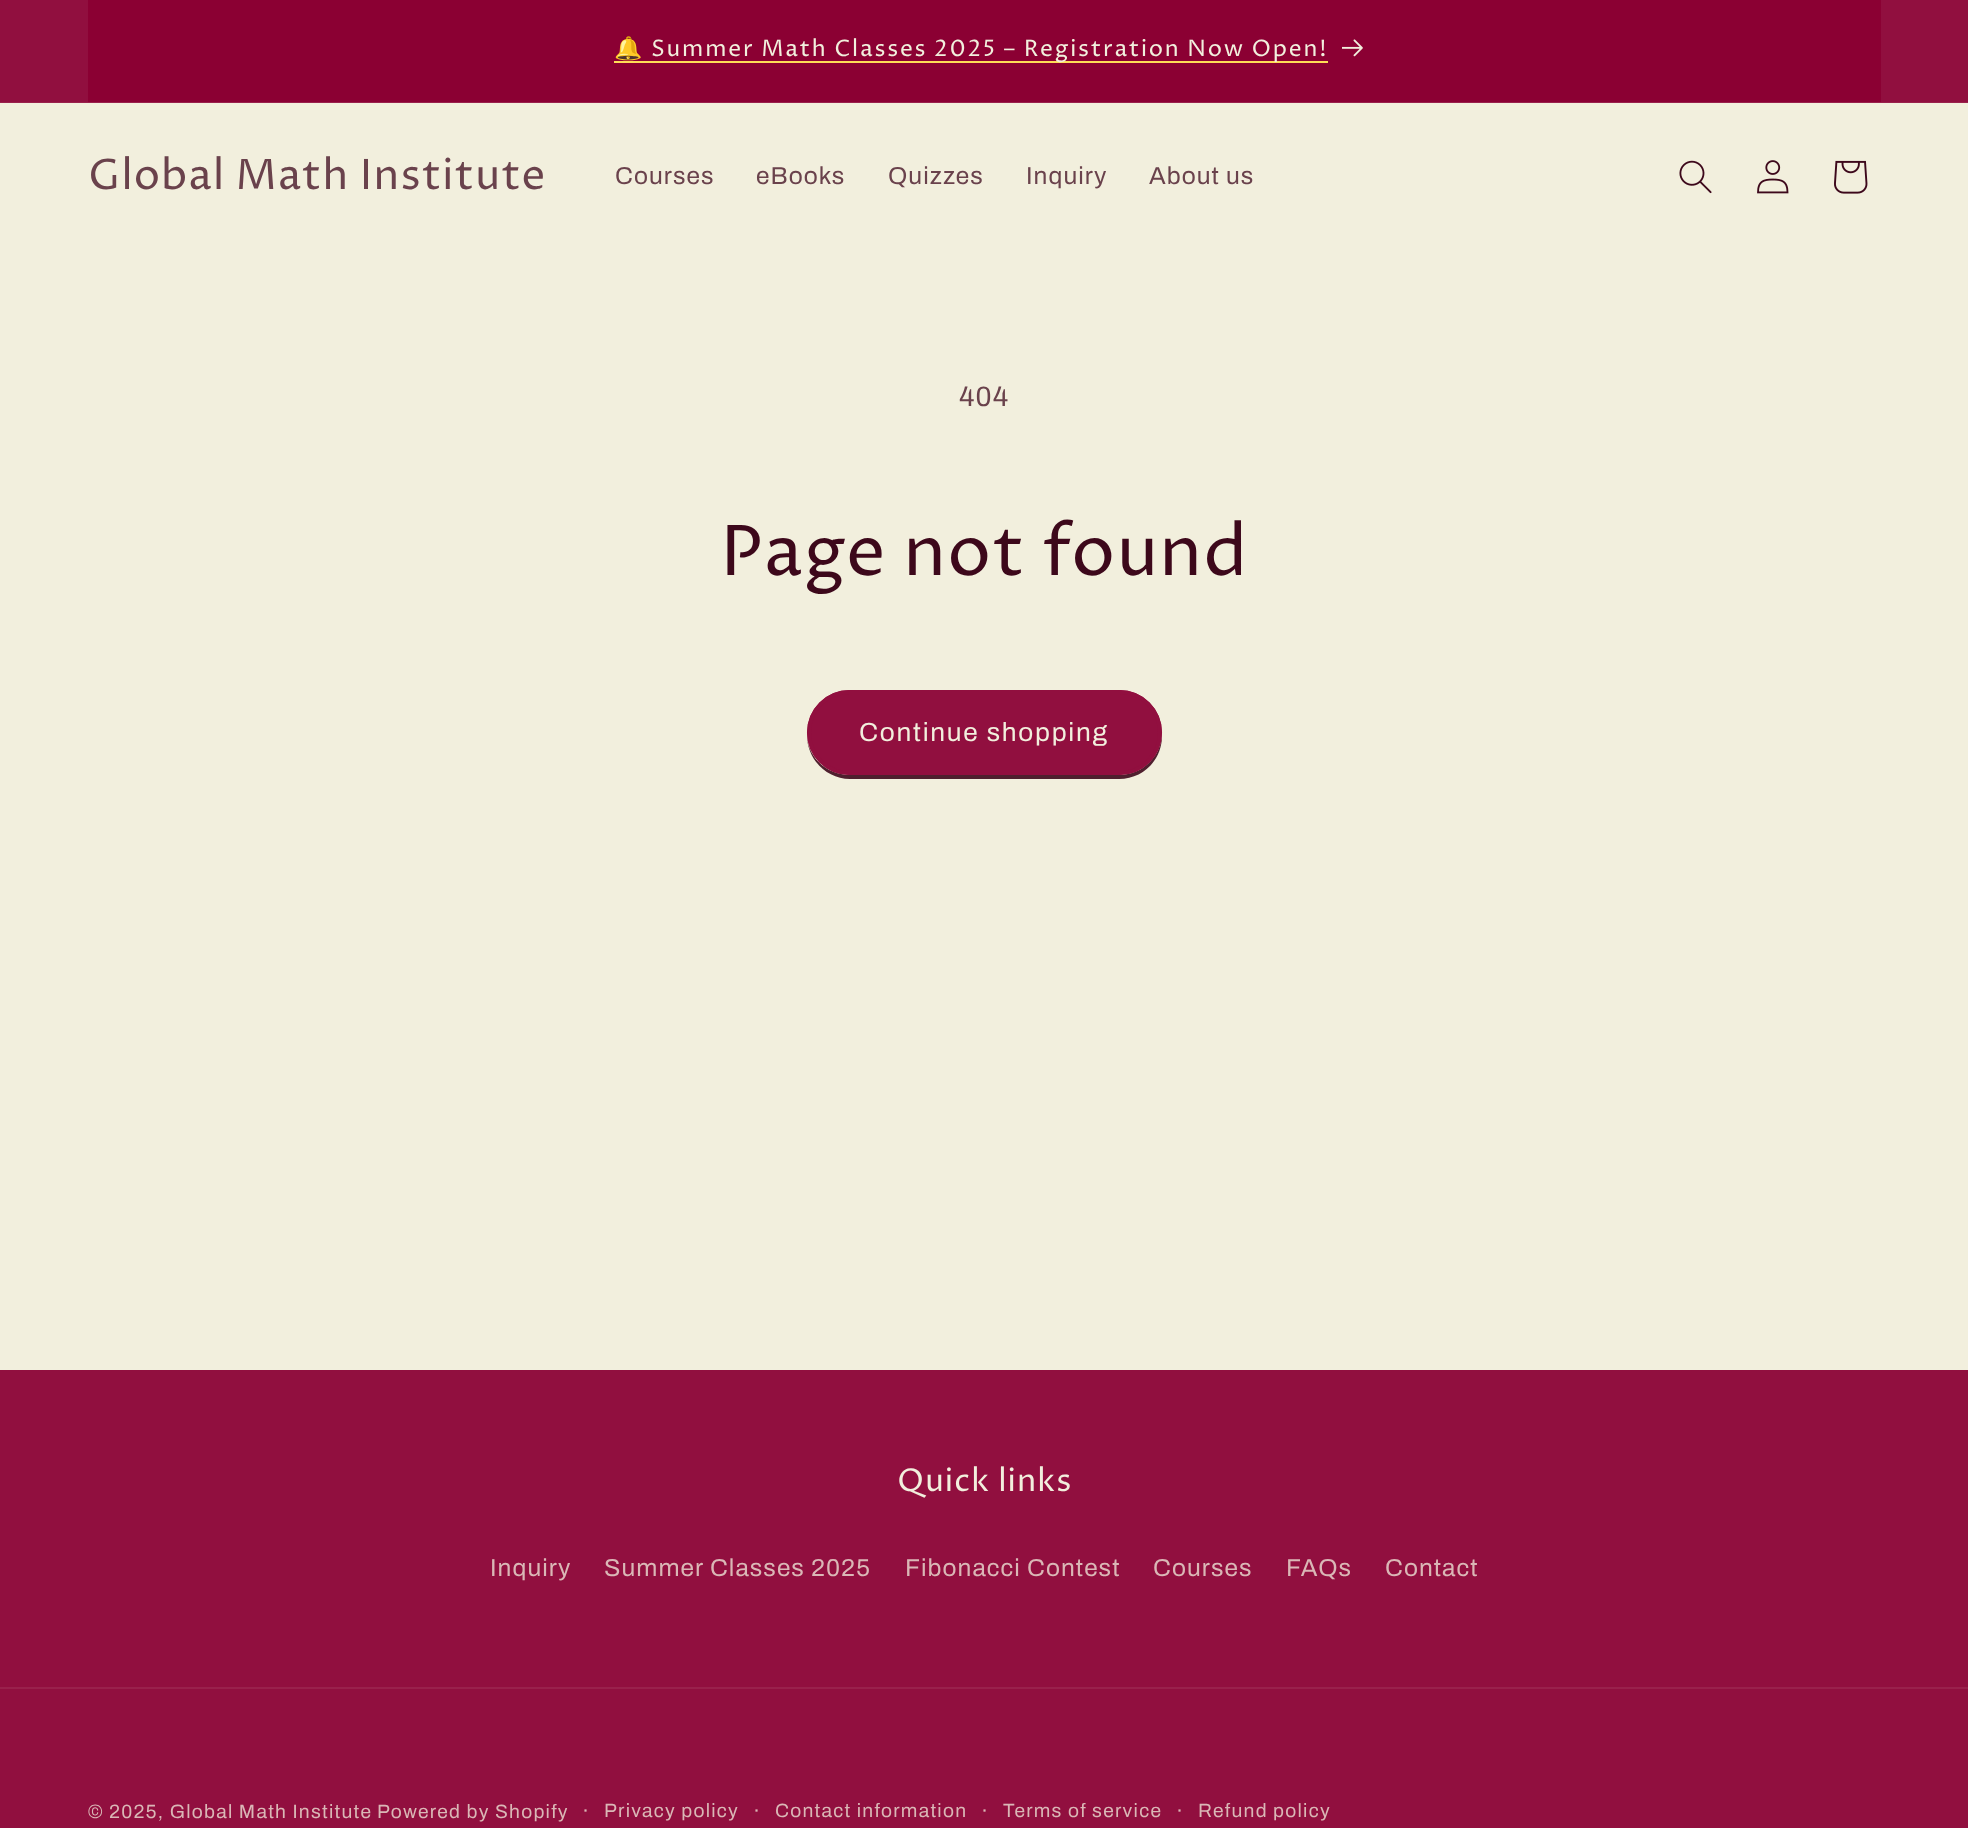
<svg xmlns="http://www.w3.org/2000/svg" width="1968" height="1828" viewBox="0 0 1968 1828">
  <rect width="100%" height="100%" fill="#f2efdd"/>
  <path d="M0 0h1968v102H0z" fill="#910f3f"/>
  <path d="M0 102h1968v1H0z" fill="#99214c"/>
  <path d="M88 0h1793v102H88z" fill="#8b0033"/>
  <path d="M614 61h714v2H614z" fill="#ffdd57"/>
  <image x="1342" y="39" width="21" height="18" href="img/1.png"/>
  <image x="1679" y="160" width="33" height="34" href="img/2.png"/>
  <image x="1757" y="160" width="32" height="34" href="img/3.png"/>
  <image x="1834" y="160" width="34" height="34" href="img/4.png"/>
  <path d="M807 737C808 760 827 779 850 779H1119C1143 779 1162 760 1162 736V734C1161 757 1142 775 1119 775H850C828 775 809 759 807 737Z" fill="#4f1f2e"/>
  <rect x="807" y="690" width="355" height="85" rx="42.5" fill="#910f3f"/>
  <rect x="809" y="692" width="351" height="81" rx="40.5" fill="none" stroke="#910f3f" stroke-width="4"/>
  <path d="M0 1370h1968v458H0z" fill="#910f3f"/>
  <path d="M0 1687h1968v2H0z" fill="#99214c"/>
  <text x="614" y="56" font-family="Noto Color Emoji" font-size="22.75" letter-spacing="1.75" fill="#f2efdd">🔔</text>
  <text x="651" y="56" font-family="Proza Libre" font-size="22.75" letter-spacing="1.75" fill="#f2efdd">Summer Math Classes 2025 – Registration Now Open!</text>
  <text x="88" y="189" font-family="Proza Libre" font-size="42" letter-spacing="1.05" fill="#6a424c">Global Math Institute</text>
  <g font-family="Archivo" font-size="24.5" letter-spacing="1.05" fill="#6a424c">
    <text x="615" y="184">Courses</text>
    <text x="756" y="184">eBooks</text>
    <text x="888" y="184">Quizzes</text>
    <text x="1026" y="184">Inquiry</text>
    <text x="1149" y="184">About us</text>
  </g>
  <text x="959" y="406" font-family="Archivo" font-size="28" letter-spacing="1.05" fill="#6a424c">404</text>
  <text x="720" y="575" font-family="Proza Libre" font-size="70" letter-spacing="1.05" fill="#3d081b">Page not found</text>
  <text x="859" y="741" font-family="Archivo" font-size="26.25" letter-spacing="1.75" fill="#f2efdd">Continue shopping</text>
  <text x="897" y="1491" font-family="Proza Libre" font-size="31.5" letter-spacing="1.05" fill="#f2efdd">Quick links</text>
  <g font-family="Archivo" font-size="24.5" letter-spacing="1.05" fill="#dab7b6">
    <text x="490" y="1576">Inquiry</text>
    <text x="604" y="1576">Summer Classes 2025</text>
    <text x="905" y="1576">Fibonacci Contest</text>
    <text x="1153" y="1576">Courses</text>
    <text x="1286" y="1576">FAQs</text>
    <text x="1385" y="1576">Contact</text>
  </g>
  <g font-family="Archivo" font-size="19.25" letter-spacing="1.25" fill="#dab7b6">
    <text x="88" y="1818">© 2025, Global Math Institute</text>
    <text x="377" y="1818">Powered by Shopify</text>
  </g>
  <text x="582" y="1818" font-family="Archivo" font-size="21" letter-spacing="1.25" fill="#dab7b6">·</text>
  <text x="604" y="1817" font-family="Archivo" font-size="19.25" letter-spacing="1.25" fill="#dab7b6">Privacy policy</text>
  <text x="753" y="1818" font-family="Archivo" font-size="21" letter-spacing="1.25" fill="#dab7b6">·</text>
  <text x="775" y="1817" font-family="Archivo" font-size="19.25" letter-spacing="1.25" fill="#dab7b6">Contact information</text>
  <text x="981" y="1818" font-family="Archivo" font-size="21" letter-spacing="1.25" fill="#dab7b6">·</text>
  <text x="1003" y="1817" font-family="Archivo" font-size="19.25" letter-spacing="1.25" fill="#dab7b6">Terms of service</text>
  <text x="1176" y="1818" font-family="Archivo" font-size="21" letter-spacing="1.25" fill="#dab7b6">·</text>
  <text x="1198" y="1817" font-family="Archivo" font-size="19.25" letter-spacing="1.25" fill="#dab7b6">Refund policy</text>
</svg>
